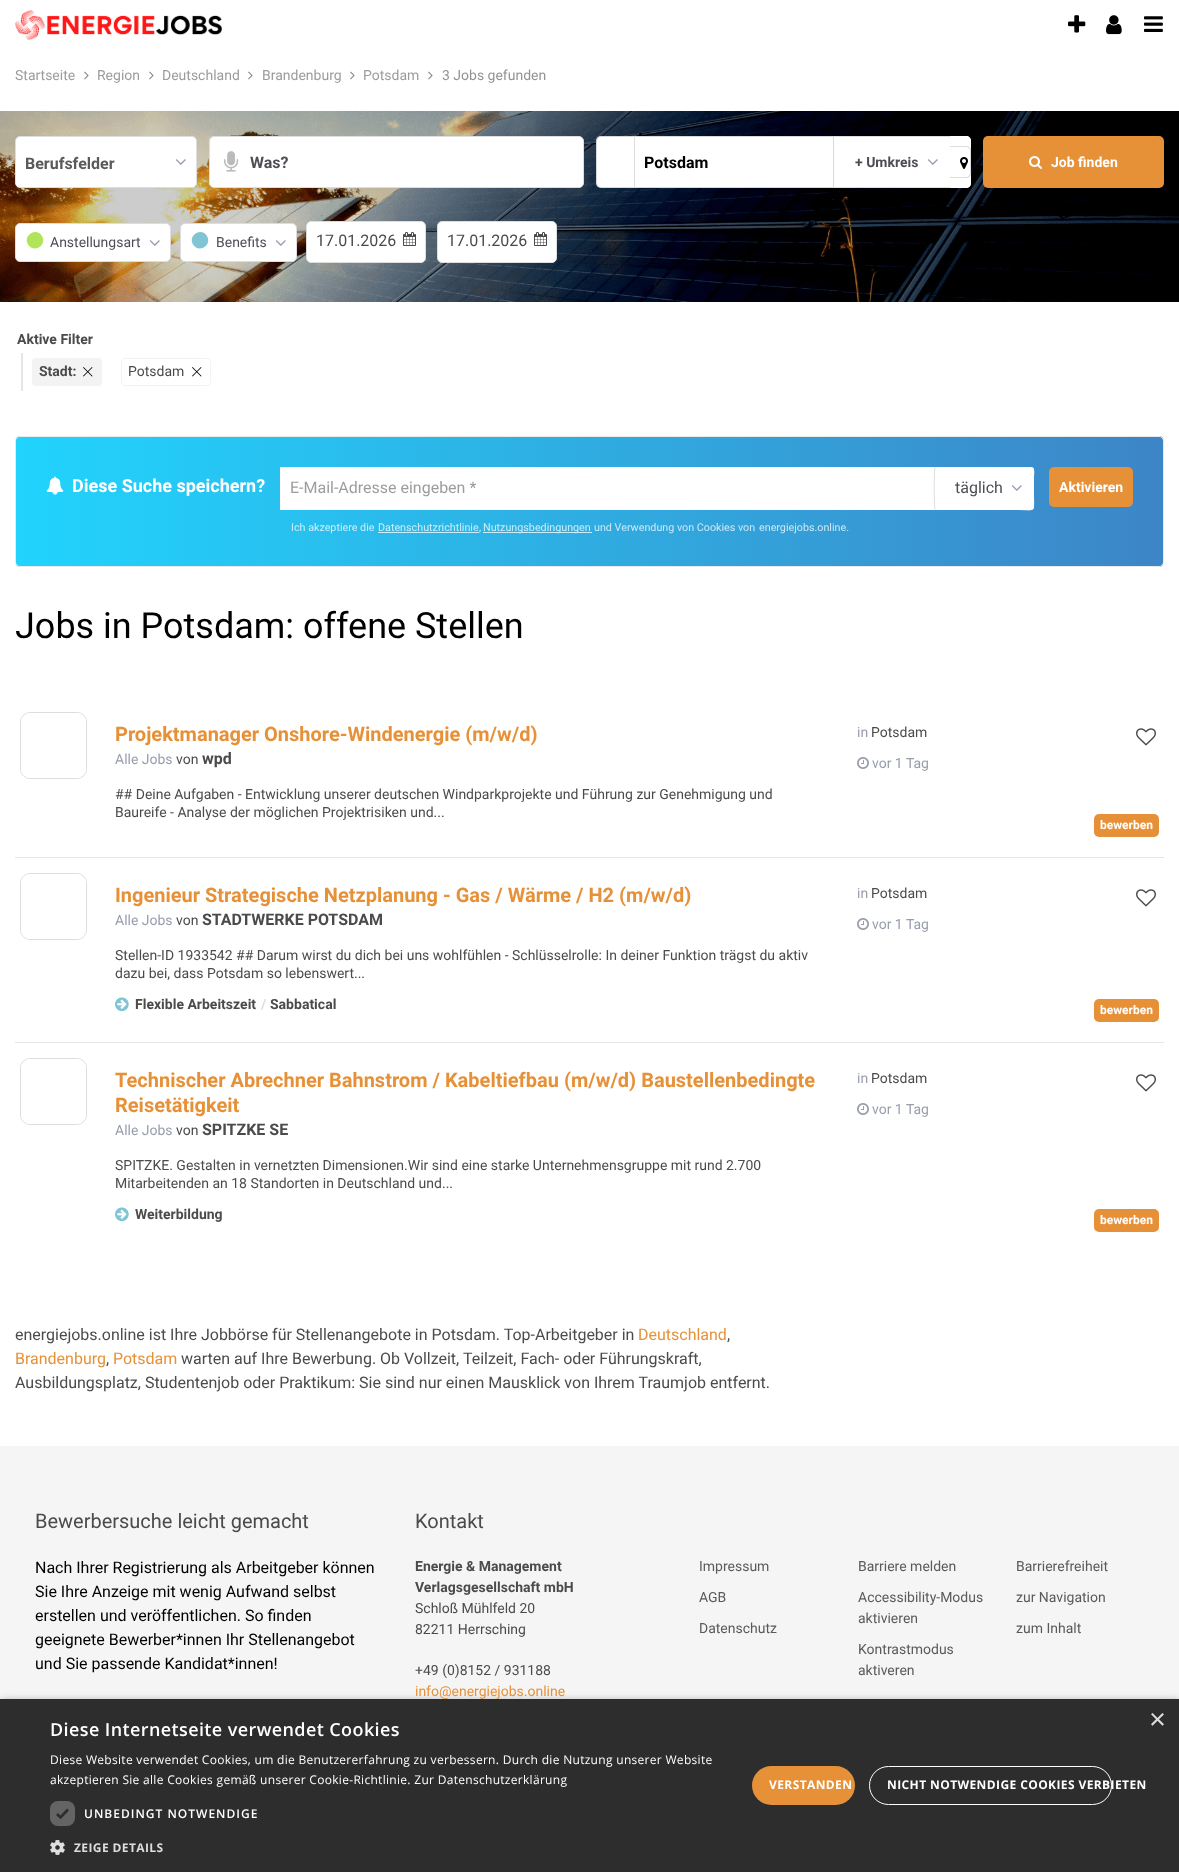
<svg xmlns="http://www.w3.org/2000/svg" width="1179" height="1872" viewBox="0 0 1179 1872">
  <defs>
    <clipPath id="clip1"><rect x="15" y="436" width="1149" height="131" rx="5"/></clipPath>
    <linearGradient id="g1" gradientUnits="userSpaceOnUse" x1="16" y1="502" x2="1163" y2="501"><stop offset="0" stop-color="#21d4fd"/><stop offset="1" stop-color="#3d85c6"/></linearGradient>
    <linearGradient id="g2" gradientUnits="userSpaceOnUse" x1="16" y1="502" x2="1163" y2="501"><stop offset="0" stop-color="#c8f4ff"/><stop offset="1" stop-color="#cfe1f1"/></linearGradient>
  </defs>
  <rect width="100%" height="100%" fill="#fff"/>
  <image x="15" y="10" width="207" height="30" href="img/1.png"/>
  <image x="1068" y="15" width="18" height="18" href="img/2.png"/>
  <image x="1106" y="15" width="16" height="20" href="img/3.png"/>
  <image x="1144" y="16" width="19" height="16" href="img/4.png"/>
  <image x="84" y="71" width="5" height="9" href="img/5.png"/>
  <image x="149" y="71" width="5" height="9" href="img/5.png"/>
  <image x="248" y="71" width="5" height="9" href="img/5.png"/>
  <image x="350" y="71" width="5" height="9" href="img/5.png"/>
  <image x="428" y="71" width="5" height="9" href="img/5.png"/>
  <image x="0" y="111" width="1179" height="191" href="img/6.png"/>
  <rect x="15.5" y="136.5" width="181" height="51" rx="4.5" fill="#fff" stroke="#ddd"/>
  <image x="175" y="159" width="11" height="6" href="img/7.png"/>
  <rect x="209.5" y="136.5" width="374" height="51" rx="4.5" fill="#fff" stroke="#ddd"/>
  <image x="224" y="151" width="15" height="21" href="img/8.png"/>
  <rect x="596" y="136" width="375" height="52" rx="5" fill="#fff"/>
  <path d="M601 136C599.5 136 598 136.5 597.5 137.5L598 138C599 137.5 600 137 601 137H634L635 136Z" fill="#7a7d804d"/>
  <path d="M635 136L634 137V187L635 188Z" fill="#ddd"/>
  <path d="M635 188L634 187H601C600 187 599 186.5 598 186L597.5 186.5C598 187.5 599.5 188 601 188Z" fill="#7a7d804d"/>
  <path d="M596 141V183C596 184 596 186 597 187L598 186C598 185 597 184 597 183V141C597 140 598 139 598 138L597 137C596 138 596 140 596 141Z" fill="#7a7d804d"/>
  <path d="M635 136H834L833 137H635Z" fill="#d7d8d9"/>
  <path d="M834 136V188L833 187V137Z" fill="#7a7d804d"/>
  <path d="M834 188H635V187H833Z" fill="#7a7d804d"/>
  <path d="M834 136h116v1H834z" fill="#ddd"/>
  <path d="M834 187h116v1H834z" fill="#ddd"/>
  <image x="927" y="159" width="11" height="6" href="img/7.png"/>
  <path d="M950 136H966C969 136 971 138 971 141V183C971 186 969 188 966 188H950Z" fill="#fff"/>
  <path d="M950 146H966C969 146 971 148 971 151V173C971 176 969 178 966 178H950ZM950 147H966C968 147 970 149 970 151V173C970 175 968 177 966 177H950Z" fill="#ddd" fill-rule="evenodd"/>
  <image x="960" y="157" width="8" height="12" href="img/9.png"/>
  <rect x="983" y="136" width="181" height="52" rx="5" fill="#e69138"/>
  <image x="1029" y="156" width="13" height="13" href="img/10.png"/>
  <rect x="15.5" y="223.5" width="155" height="38" rx="4.5" fill="#fff" stroke="#ddd"/>
  <path d="M42 236C47.5 245.5 33.5 253.5 28 244.5C22.5 235 37 227 42 236Z" fill="#b2e459"/>
  <image x="149" y="240" width="11" height="6" href="img/7.png"/>
  <rect x="180.5" y="223.5" width="116" height="38" rx="4.5" fill="#fff" stroke="#ddd"/>
  <path d="M207 236C212.5 245.5 198.5 253.5 193 244.5C187.5 235 202 227 207 236Z" fill="#81c4d3"/>
  <image x="275" y="240" width="11" height="6" href="img/7.png"/>
  <rect x="306.5" y="221.5" width="119" height="41" rx="4.5" fill="#fff" stroke="#ddd"/>
  <image x="403" y="232" width="13" height="14" href="img/11.png"/>
  <rect x="437.5" y="221.5" width="119" height="41" rx="4.5" fill="#fff" stroke="#ddd"/>
  <image x="534" y="232" width="13" height="14" href="img/11.png"/>
  <path d="M21 353h2v38H21z" fill="#e5e5e5"/>
  <rect x="32" y="358" width="70" height="28" rx="4" fill="#f3f3f3"/>
  <image x="83" y="367" width="10" height="10" href="img/12.png"/>
  <rect x="32.5" y="358.5" width="69" height="27" rx="3.5" fill="none" stroke="#f3f3f3"/>
  <image x="192" y="367" width="10" height="10" href="img/13.png"/>
  <rect x="121.5" y="358.5" width="89" height="27" rx="3.5" fill="none" stroke="#f3f3f3"/>
  <g clip-path="url(#clip1)">
    <path d="M16 436h1147v131H16z" fill="url(#g1)"/>
  </g>
  <path d="M483 532h109v1H483z" fill="url(#g2)"/>
  <path d="M378 532h101v1H378z" fill="url(#g2)"/>
  <rect x="15.5" y="436.5" width="1148" height="130" rx="4.5" fill="none" stroke="#eaeaea"/>
  <image x="46" y="476" width="18" height="19" href="img/14.png"/>
  <path d="M280 467h655v43H280z" fill="#fff"/>
  <rect x="934" y="467" width="100" height="43" rx="3" fill="#fff"/>
  <path d="M935 468L937 467.5H1031C1035 467.5 1033.5 475 1033.5 476V494.5C1033.5 513.5 1036.5 509.5 1015.5 509.5H937L935 509" fill="none" stroke="#fff"/>
  <path d="M935 509C934 507.5 934 469.5 935 468" fill="none" stroke="#ddd"/>
  <image x="1011" y="485" width="11" height="6" href="img/7.png"/>
  <rect x="1049" y="467" width="84" height="40" rx="5" fill="#e69138"/>
  <path d="M15 857h1149v1H15z" fill="#e6e6e6"/>
  <rect x="20.5" y="712.5" width="66" height="66" rx="9.5" fill="none" stroke="#ddd"/>
  <rect x="21" y="713" width="65" height="65" rx="9" fill="#fff"/>
  <image x="857" y="757" width="12" height="12" href="img/15.png"/>
  <image x="1136" y="728" width="20" height="18" href="img/16.png"/>
  <rect x="1094" y="814" width="65" height="23" rx="5" fill="#e69138"/>
  <path d="M15 1042h1149v1H15z" fill="#e6e6e6"/>
  <rect x="20.5" y="873.5" width="66" height="66" rx="9.5" fill="none" stroke="#ddd"/>
  <rect x="21" y="874" width="65" height="65" rx="9" fill="#fff"/>
  <image x="857" y="918" width="12" height="12" href="img/15.png"/>
  <image x="1136" y="889" width="20" height="18" href="img/16.png"/>
  <rect x="1094" y="999" width="65" height="23" rx="5" fill="#e69138"/>
  <image x="115" y="997" width="14" height="15" href="img/17.png"/>
  <rect x="20.5" y="1058.5" width="66" height="66" rx="9.5" fill="none" stroke="#ddd"/>
  <rect x="21" y="1059" width="65" height="65" rx="9" fill="#fff"/>
  <image x="857" y="1103" width="12" height="12" href="img/15.png"/>
  <image x="1136" y="1074" width="20" height="18" href="img/16.png"/>
  <rect x="1094" y="1209" width="65" height="23" rx="5" fill="#e69138"/>
  <image x="115" y="1207" width="14" height="15" href="img/17.png"/>
  <path d="M0 1446h1179v253H0z" fill="#f5f5f5"/>
  <path d="M1 1701h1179v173H1z" fill="#00000059" filter="blur(4px)"/>
  <g font-family="Roboto" font-size="14" fill="#9c9c9c">
    <text x="15" y="80">Startseite</text>
    <text x="97" y="80">Region</text>
    <text x="162" y="80">Deutschland</text>
    <text x="262" y="80">Brandenburg</text>
    <text x="363" y="80">Potsdam</text>
  </g>
  <text x="442" y="80" font-family="Roboto" font-size="14" fill="#939393">3 Jobs gefunden</text>
  <text x="25" y="169" font-family="Roboto" font-size="16" font-weight="bold" fill="#5a5a5a">Berufsfelder</text>
  <text x="250" y="168" font-family="Roboto" font-size="16" font-weight="bold" fill="#4e4e57">Was?</text>
  <text x="644" y="168" font-family="Roboto" font-size="16" font-weight="bold" fill="#000">Potsdam</text>
  <text x="855" y="167" font-family="Roboto" font-size="14" font-weight="bold" fill="#4e4e57">+ Umkreis</text>
  <text x="1051" y="167" font-family="Roboto" font-size="14" font-weight="bold" fill="#fff">Job finden</text>
  <g font-family="Roboto" font-size="14" fill="#4e4e57">
    <text x="50" y="247">Anstellungsart</text>
    <text x="216" y="247">Benefits</text>
  </g>
  <g font-family="Roboto" font-size="16" fill="#4b4b4b">
    <text x="316" y="246">17.01.2026</text>
    <text x="447" y="246">17.01.2026</text>
  </g>
  <g font-family="Roboto" font-size="14" font-weight="bold" fill="#4b4b4b">
    <text x="17" y="344">Aktive Filter</text>
    <text x="39" y="376">Stadt:</text>
  </g>
  <text x="128" y="376" font-family="Roboto" font-size="14" fill="#4b4b4b">Potsdam</text>
  <text x="72" y="492" font-family="Roboto" font-size="18" font-weight="bold" fill="#fff">Diese Suche speichern?</text>
  <text x="290" y="493" font-family="Roboto" font-size="16" fill="#9c9c9c">E-Mail-Adresse eingeben *</text>
  <text x="955" y="493" font-family="Roboto" font-size="16" fill="#4e4e57">täglich</text>
  <text x="1059" y="492" font-family="Roboto" font-size="14" font-weight="bold" fill="#fff">Aktivieren</text>
  <g font-family="Roboto" font-size="10.75" fill="#c9effb">
    <text x="291" y="531">Ich akzeptiere die</text>
    <text x="378" y="531">Datenschutzrichtlinie</text>
    <text x="479" y="531">,</text>
    <text x="483" y="531">Nutzungsbedingungen</text>
  </g>
  <g font-family="Roboto" font-size="10.75" fill="#cce9f7">
    <text x="594" y="531">und Verwendung von Cookies von</text>
    <text x="759" y="531">energiejobs.online.</text>
  </g>
  <text x="15" y="638" font-family="Roboto" font-size="36" fill="#000">Jobs in Potsdam: offene Stellen</text>
  <text x="115" y="741" font-family="Roboto" font-size="20" font-weight="bold" fill="#e69138">Projektmanager Onshore-Windenergie (m/w/d)</text>
  <text x="115" y="764" font-family="Roboto" font-size="14" fill="#989dac">Alle Jobs</text>
  <text x="176" y="764" font-family="Roboto" font-size="14" fill="#4b4b4b">von</text>
  <text x="202" y="764" font-family="Roboto" font-size="16" font-weight="bold" fill="#4b4b4b">wpd</text>
  <g font-family="Roboto" font-size="14" fill="#4b4b4b">
    <text x="115" y="799">## Deine Aufgaben - Entwicklung unserer deutschen Windparkprojekte und Führung zur Genehmigung und</text>
    <text x="115" y="817">Baureife - Analyse der möglichen Projektrisiken und...</text>
  </g>
  <text x="857" y="737" font-family="Roboto" font-size="14" fill="#989dac">in</text>
  <text x="871" y="737" font-family="Roboto" font-size="14" fill="#4b4b4b">Potsdam</text>
  <text x="872" y="768" font-family="Roboto" font-size="14" fill="#989dac">vor 1 Tag</text>
  <text x="1100" y="829" font-family="Roboto" font-size="12" font-weight="bold" fill="#fff">bewerben</text>
  <text x="115" y="902" font-family="Roboto" font-size="20" font-weight="bold" fill="#e69138">Ingenieur Strategische Netzplanung - Gas / Wärme / H2 (m/w/d)</text>
  <text x="115" y="925" font-family="Roboto" font-size="14" fill="#989dac">Alle Jobs</text>
  <text x="176" y="925" font-family="Roboto" font-size="14" fill="#4b4b4b">von</text>
  <text x="202" y="925" font-family="Roboto" font-size="16" font-weight="bold" fill="#4b4b4b">STADTWERKE POTSDAM</text>
  <g font-family="Roboto" font-size="14" fill="#4b4b4b">
    <text x="115" y="960">Stellen-ID 1933542 ## Darum wirst du dich bei uns wohlfühlen - Schlüsselrolle: In deiner Funktion trägst du aktiv</text>
    <text x="115" y="978">dazu bei, dass Potsdam so lebenswert...</text>
  </g>
  <text x="857" y="898" font-family="Roboto" font-size="14" fill="#989dac">in</text>
  <text x="871" y="898" font-family="Roboto" font-size="14" fill="#4b4b4b">Potsdam</text>
  <text x="872" y="929" font-family="Roboto" font-size="14" fill="#989dac">vor 1 Tag</text>
  <text x="1100" y="1014" font-family="Roboto" font-size="12" font-weight="bold" fill="#fff">bewerben</text>
  <text x="135" y="1009" font-family="Roboto" font-size="14" font-weight="bold" fill="#4b4b4b">Flexible Arbeitszeit</text>
  <text x="261" y="1009" font-family="Roboto" font-size="14" font-weight="bold" fill="#ddd">/</text>
  <text x="270" y="1009" font-family="Roboto" font-size="14" font-weight="bold" fill="#4b4b4b">Sabbatical</text>
  <g font-family="Roboto" font-size="20" font-weight="bold" fill="#e69138">
    <text x="115" y="1087">Technischer Abrechner Bahnstrom / Kabeltiefbau (m/w/d) Baustellenbedingte</text>
    <text x="115" y="1112">Reisetätigkeit</text>
  </g>
  <text x="115" y="1135" font-family="Roboto" font-size="14" fill="#989dac">Alle Jobs</text>
  <text x="176" y="1135" font-family="Roboto" font-size="14" fill="#4b4b4b">von</text>
  <text x="202" y="1135" font-family="Roboto" font-size="16" font-weight="bold" fill="#4b4b4b">SPITZKE SE</text>
  <g font-family="Roboto" font-size="14" fill="#4b4b4b">
    <text x="115" y="1170">SPITZKE. Gestalten in vernetzten Dimensionen.Wir sind eine starke Unternehmensgruppe mit rund 2.700</text>
    <text x="115" y="1188">Mitarbeitenden an 18 Standorten in Deutschland und...</text>
  </g>
  <text x="857" y="1083" font-family="Roboto" font-size="14" fill="#989dac">in</text>
  <text x="871" y="1083" font-family="Roboto" font-size="14" fill="#4b4b4b">Potsdam</text>
  <text x="872" y="1114" font-family="Roboto" font-size="14" fill="#989dac">vor 1 Tag</text>
  <text x="1100" y="1224" font-family="Roboto" font-size="12" font-weight="bold" fill="#fff">bewerben</text>
  <text x="135" y="1219" font-family="Roboto" font-size="14" font-weight="bold" fill="#4b4b4b">Weiterbildung</text>
  <text x="15" y="1340" font-family="Roboto" font-size="16" fill="#4b4b4b">energiejobs.online ist Ihre Jobbörse für Stellenangebote in Potsdam. Top-Arbeitgeber in</text>
  <text x="638" y="1340" font-family="Roboto" font-size="16" fill="#e69138">Deutschland</text>
  <text x="727" y="1340" font-family="Roboto" font-size="16" fill="#4b4b4b">,</text>
  <text x="15" y="1364" font-family="Roboto" font-size="16" fill="#e69138">Brandenburg</text>
  <text x="106" y="1364" font-family="Roboto" font-size="16" fill="#4b4b4b">,</text>
  <text x="113" y="1364" font-family="Roboto" font-size="16" fill="#e69138">Potsdam</text>
  <g font-family="Roboto" font-size="16" fill="#4b4b4b">
    <text x="181" y="1364">warten auf Ihre Bewerbung. Ob Vollzeit, Teilzeit, Fach- oder Führungskraft,</text>
    <text x="15" y="1388">Ausbildungsplatz, Studentenjob oder Praktikum: Sie sind nur einen Mausklick von Ihrem Traumjob entfernt.</text>
  </g>
  <text x="35" y="1528" font-family="Roboto" font-size="20" fill="#4b4b4b">Bewerbersuche leicht gemacht</text>
  <g font-family="Roboto" font-size="16" fill="#000">
    <text x="35" y="1573">Nach Ihrer Registrierung als Arbeitgeber können</text>
    <text x="35" y="1597">Sie Ihre Anzeige mit wenig Aufwand selbst</text>
    <text x="35" y="1621">erstellen und veröffentlichen. So finden</text>
    <text x="35" y="1645">geeignete Bewerber*innen Ihr Stellenangebot</text>
    <text x="35" y="1669">und Sie passende Kandidat*innen!</text>
  </g>
  <text x="415" y="1528" font-family="Roboto" font-size="20" fill="#4b4b4b">Kontakt</text>
  <g font-family="Roboto" font-size="14" font-weight="bold" fill="#4b4b4b">
    <text x="415" y="1571">Energie &amp; Management</text>
    <text x="415" y="1592">Verlagsgesellschaft mbH</text>
  </g>
  <g font-family="Roboto" font-size="14" fill="#4b4b4b">
    <text x="415" y="1613">Schloß Mühlfeld 20</text>
    <text x="415" y="1634">82211 Herrsching</text>
    <text x="415" y="1675">+49 (0)8152 / 931188</text>
  </g>
  <text x="415" y="1696" font-family="Roboto" font-size="14" fill="#e69138">info@energiejobs.online</text>
  <g font-family="Roboto" font-size="14" fill="#5a5a5a">
    <text x="699" y="1571">Impressum</text>
    <text x="699" y="1602">AGB</text>
    <text x="699" y="1633">Datenschutz</text>
    <text x="858" y="1571">Barriere melden</text>
    <text x="858" y="1602">Accessibility-Modus</text>
    <text x="858" y="1623">aktivieren</text>
    <text x="858" y="1654">Kontrastmodus</text>
    <text x="858" y="1675">aktiveren</text>
    <text x="1016" y="1571">Barrierefreiheit</text>
    <text x="1016" y="1602">zur Navigation</text>
    <text x="1016" y="1633">zum Inhalt</text>
  </g>
  <path d="M0 1699h1179v173H0z" fill="#2d2d2d"/>
  <text x="1149" y="1729" font-family="Liberation Sans" font-size="29" fill="#ddd">×</text>
  <text x="50" y="1736" font-family="Open Sans" font-size="18" font-weight="600" letter-spacing="0.4" fill="#fff">Diese Internetseite verwendet Cookies</text>
  <g font-family="Open Sans" font-size="12" letter-spacing="0.3" fill="#fff">
    <text x="50" y="1764">Diese Website verwendet Cookies, um die Benutzererfahrung zu verbessern. Durch die Nutzung unserer Website</text>
    <text x="50" y="1784">akzeptieren Sie alle Cookies gemäß unserer Cookie-Richtlinie. Zur Datenschutzerklärung</text>
  </g>
  <rect x="50" y="1801" width="25" height="25" rx="8" fill="#646464"/>
  <path d="M57 1814L60.5 1817.5L68 1809.5" fill="none" stroke="#2d2d2d" stroke-width="2.6"/>
  <text x="84" y="1818" font-family="Open Sans" font-size="12" font-weight="600" letter-spacing="1" fill="#fff">UNBEDINGT NOTWENDIGE</text>
  <image x="50" y="1840" width="15" height="15" href="img/18.png"/>
  <text x="74" y="1852" font-family="Open Sans" font-size="12" font-weight="bold" letter-spacing="0.4" fill="#ddd">ZEIGE DETAILS</text>
  <rect x="752" y="1766" width="103" height="39" rx="19.5" fill="#e69138"/>
  <text x="769" y="1789" font-family="Open Sans" font-size="12" font-weight="bold" letter-spacing="0.4" fill="#fff">VERSTANDEN</text>
  <rect x="869.5" y="1766.5" width="242" height="38" rx="19" fill="none" stroke="#fff"/>
  <text x="887" y="1789" font-family="Open Sans" font-size="12" font-weight="bold" letter-spacing="0.4" fill="#fff">NICHT NOTWENDIGE COOKIES VERBIETEN</text>
</svg>
